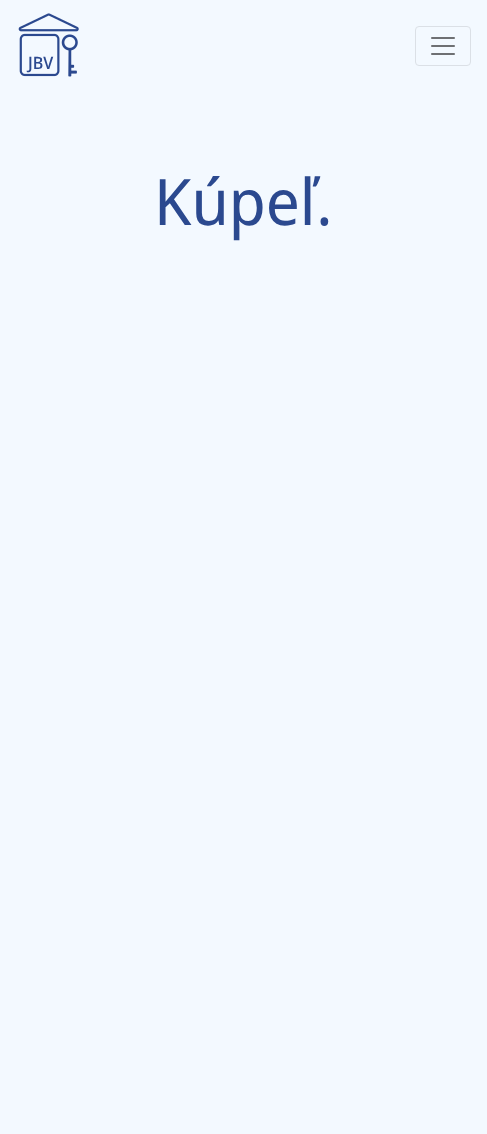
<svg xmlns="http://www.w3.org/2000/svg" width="487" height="1134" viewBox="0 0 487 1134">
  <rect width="100%" height="100%" fill="#f3f9ff"/>
  <image x="18" y="13" width="61" height="64" href="img/1.png"/>
  <rect x="415.5" y="26.5" width="55" height="39" rx="3.5" fill="none" stroke="#dbe0e6"/>
  <image x="431" y="37" width="24" height="18" href="img/2.png"/>
  <text x="28" y="69" font-family="Noto Sans Display" font-size="17" font-weight="500" fill="#2b498f">JBV</text>
  <text x="154" y="225" font-family="Noto Sans Display" font-size="64" fill="#2b498f">Kúpeľ.</text>
</svg>
